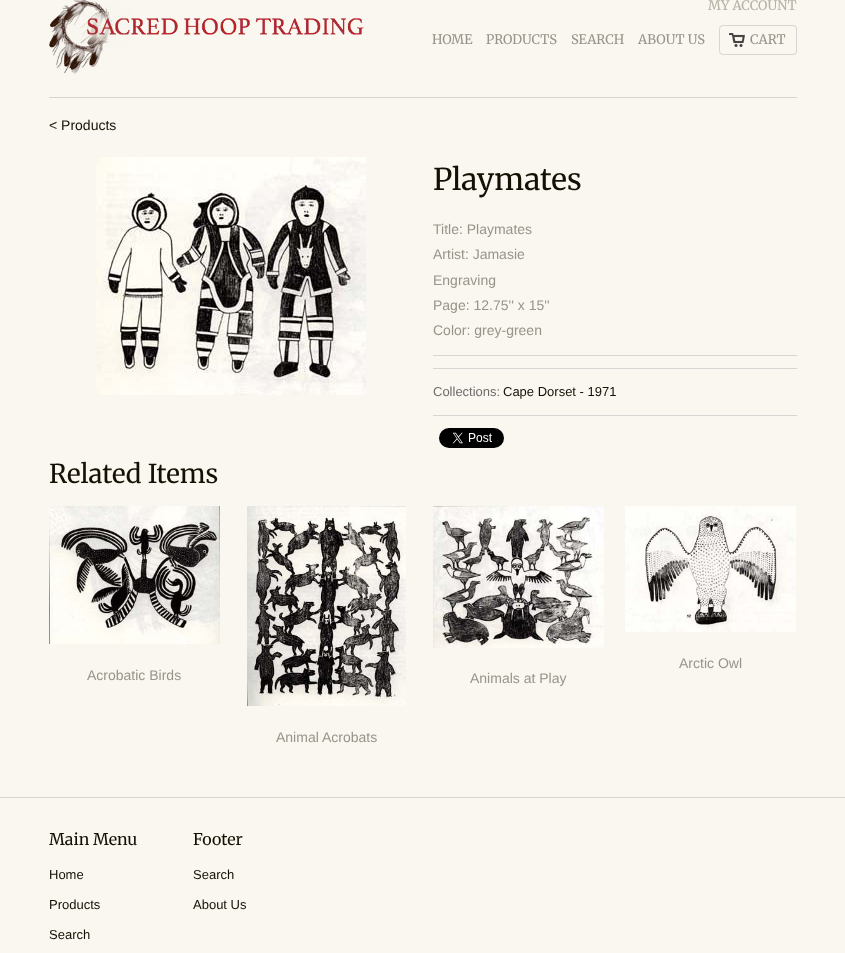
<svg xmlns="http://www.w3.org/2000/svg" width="845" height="953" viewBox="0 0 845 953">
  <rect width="100%" height="100%" fill="#f9f7f0"/>
  <path d="M49 97h748v1H49z" fill="#d7d4d3"/>
  <image x="49" y="0" width="315" height="74" href="img/1.png"/>
  <image x="729" y="33" width="16" height="14" href="img/2.png"/>
  <rect x="719.5" y="25.5" width="77" height="29" rx="3.5" fill="none" stroke="#d7d4d3"/>
  <image x="96" y="157" width="270" height="238" href="img/3.png"/>
  <path d="M433 355h364v1H433z" fill="#d7d4d3"/>
  <path d="M433 368h364v1H433z" fill="#d7d4d3"/>
  <path d="M433 415h364v1H433z" fill="#d7d4d3"/>
  <image x="439" y="428" width="65" height="20" href="img/4.png"/>
  <image x="625" y="506" width="171" height="126" href="img/5.png"/>
  <image x="49" y="506" width="171" height="138" href="img/6.png"/>
  <image x="433" y="506" width="171" height="142" href="img/7.png"/>
  <image x="247" y="506" width="159" height="200" href="img/8.png"/>
  <path d="M0 797h845v1H0z" fill="#d7d4d3"/>
  <text x="708" y="10" font-family="Merriweather" font-size="13" fill="#b4b2a4">MY ACCOUNT</text>
  <g font-family="Merriweather" font-size="13" fill="#969589">
    <text x="432" y="44">HOME</text>
    <text x="486" y="44">PRODUCTS</text>
    <text x="571" y="44">SEARCH</text>
    <text x="638" y="44">ABOUT US</text>
    <text x="750" y="44">CART</text>
  </g>
  <text x="49" y="130" font-family="Liberation Sans" font-size="14" fill="#141003">&lt; Products</text>
  <text x="433" y="190" font-family="Merriweather" font-size="30" fill="#141003">Playmates</text>
  <g font-family="Liberation Sans" font-size="14" fill="#969589">
    <text x="433" y="234">Title: Playmates</text>
    <text x="433" y="259">Artist: Jamasie</text>
    <text x="433" y="285">Engraving</text>
    <text x="433" y="310">Page: 12.75'' x 15''</text>
    <text x="433" y="335">Color: grey-green</text>
  </g>
  <text x="433" y="396" font-family="Liberation Sans" font-size="13" fill="#6e6c6a">Collections:</text>
  <text x="503" y="396" font-family="Liberation Sans" font-size="13" fill="#141003">Cape Dorset - 1971</text>
  <text x="49" y="483" font-family="Merriweather" font-size="26" fill="#141003">Related Items</text>
  <g font-family="Liberation Sans" font-size="14" fill="#969589">
    <text x="679" y="668">Arctic Owl</text>
    <text x="87" y="680">Acrobatic Birds</text>
    <text x="470" y="683">Animals at Play</text>
    <text x="276" y="742">Animal Acrobats</text>
  </g>
  <text x="49" y="845" font-family="Merriweather" font-size="16" fill="#141003">Main Menu</text>
  <g font-family="Liberation Sans" font-size="13" fill="#141003">
    <text x="49" y="879">Home</text>
    <text x="49" y="909">Products</text>
    <text x="49" y="939">Search</text>
  </g>
  <text x="193" y="845" font-family="Merriweather" font-size="16" fill="#141003">Footer</text>
  <g font-family="Liberation Sans" font-size="13" fill="#141003">
    <text x="193" y="879">Search</text>
    <text x="193" y="909">About Us</text>
  </g>
</svg>
